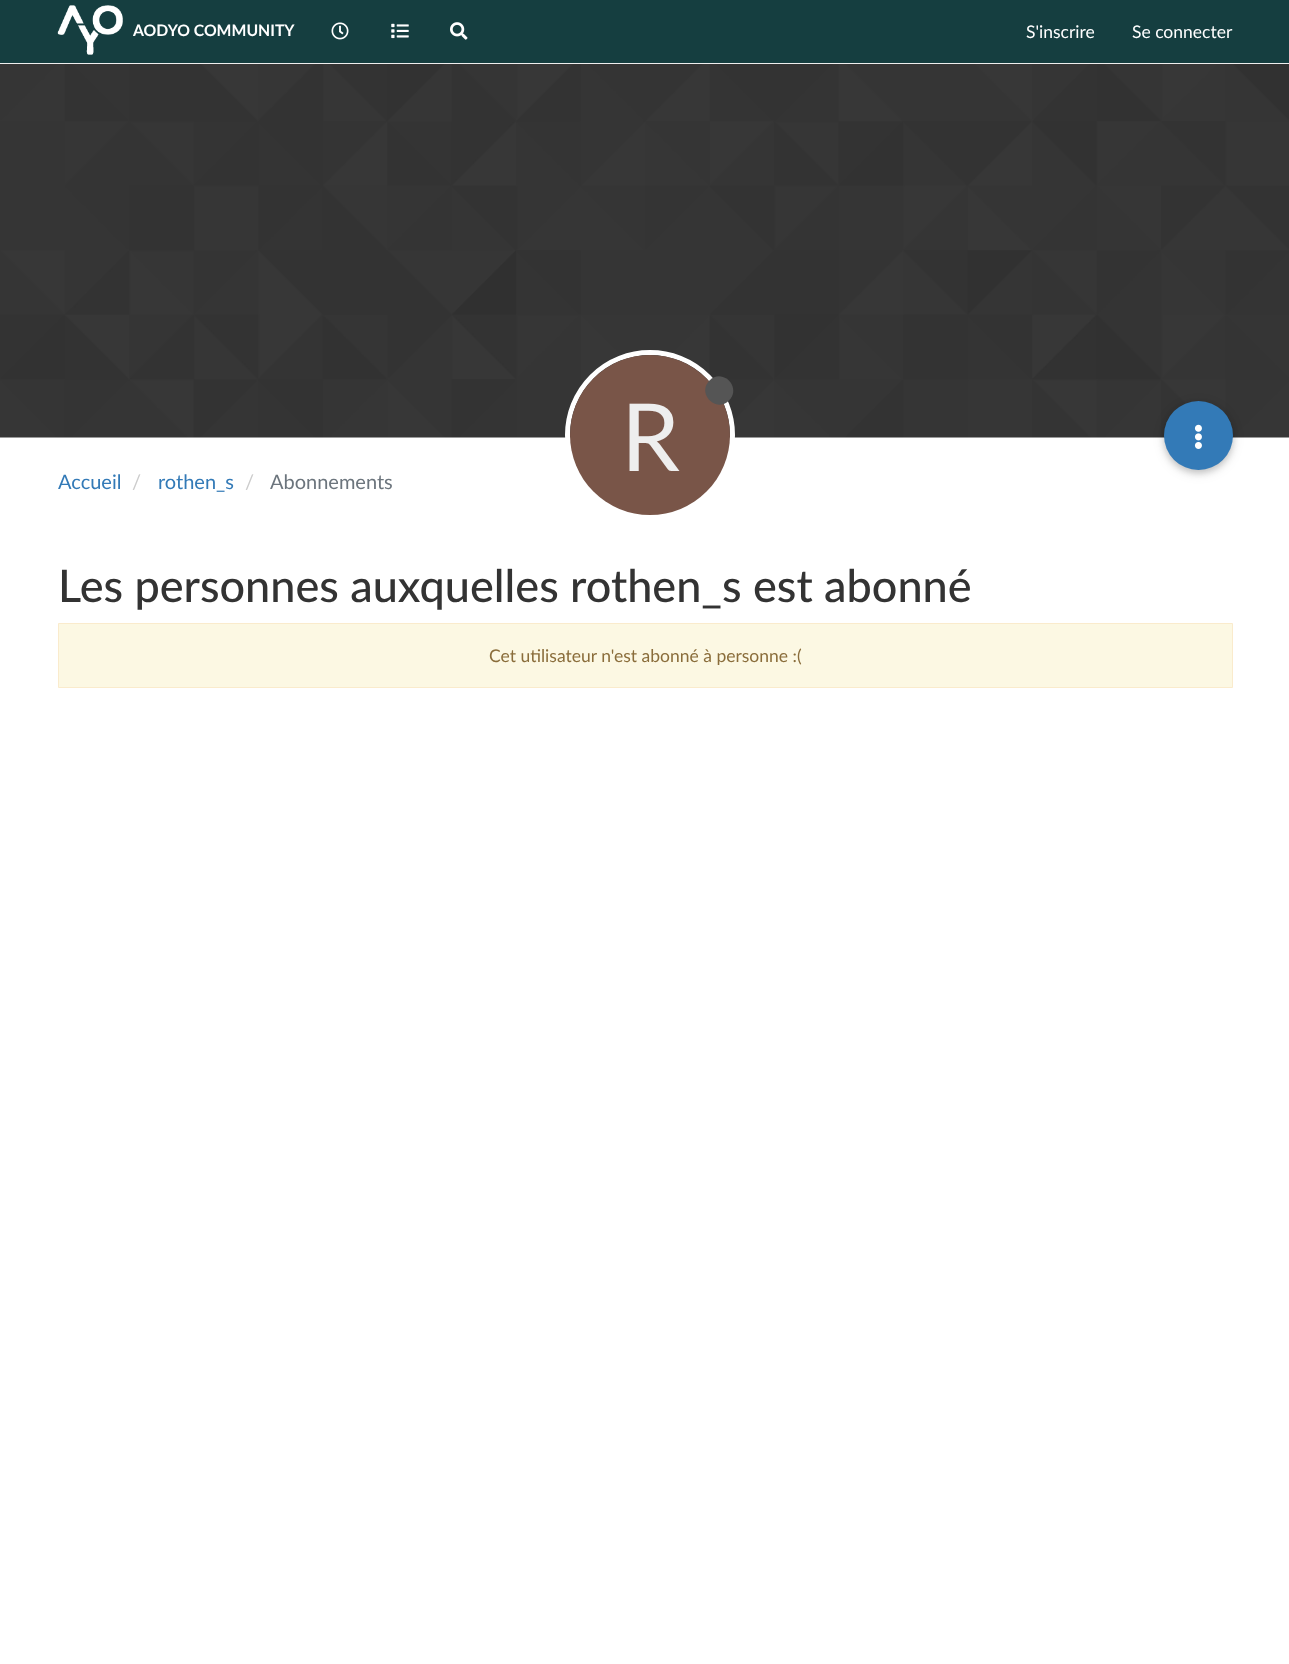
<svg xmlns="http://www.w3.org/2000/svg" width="1289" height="1664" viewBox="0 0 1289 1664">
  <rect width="100%" height="100%" fill="#fff"/>
  <path d="M0 0h1289v63H0z" fill="#153e40"/>
  <path d="M0 63h1289v1H0z" fill="#eee"/>
  <image x="57" y="5" width="66" height="50" href="img/1.png"/>
  <image x="331" y="22" width="18" height="18" href="img/2.png"/>
  <image x="391" y="23" width="18" height="16" href="img/3.png"/>
  <image x="450" y="22" width="18" height="18" href="img/4.png"/>
  <image x="0" y="64" width="1289" height="374" href="img/5.png"/>
  <circle cx="650" cy="435" r="82.5" fill="none" stroke="#fff" stroke-width="5"/>
  <circle cx="650" cy="435" r="80" fill="#795548"/>
  <path d="M709.5 380.5C722.5 367.5 742 387.5 729 400.5C716 413.5 696.5 393.5 709.5 380.5Z" fill="#555"/>
  <rect x="1164" y="404" width="69" height="69" rx="34.5" fill="#0000001f" filter="blur(6px)"/>
  <rect x="1164" y="404" width="69" height="69" rx="34.5" fill="#00000029" filter="blur(3px)"/>
  <circle cx="1198.5" cy="435.5" r="34.5" fill="#337ab7"/>
  <image x="1194" y="424" width="8" height="25" href="img/6.png"/>
  <path d="M58.5 623.5h1174v64H58.5z" fill="#fcf8e3" stroke="#faebcc"/>
  <text x="133" y="36" font-family="Lato" font-size="15.75" font-weight="bold" fill="#fff">AODYO COMMUNITY</text>
  <g font-family="Lato" font-size="17.5" fill="#fff">
    <text x="1026" y="38">S'inscrire</text>
    <text x="1132" y="38">Se connecter</text>
  </g>
  <text x="621" y="471" font-family="Lato" font-size="94" fill="#eee">R</text>
  <text x="58" y="489" font-family="Lato" font-size="20" fill="#337ab7">Accueil</text>
  <text x="132" y="489" font-family="Lato" font-size="20" fill="#ccc">/</text>
  <text x="158" y="489" font-family="Lato" font-size="20" fill="#337ab7">rothen_s</text>
  <text x="245" y="489" font-family="Lato" font-size="20" fill="#ccc">/</text>
  <text x="270" y="489" font-family="Lato" font-size="20" fill="#6c757d">Abonnements</text>
  <text x="58" y="602" font-family="Lato" font-size="45" font-weight="500" fill="#333">Les personnes auxquelles rothen_s est abonné</text>
  <text x="489" y="662" font-family="Lato" font-size="17.5" fill="#8a6d3b">Cet utilisateur n'est abonné à personne :(</text>
</svg>
